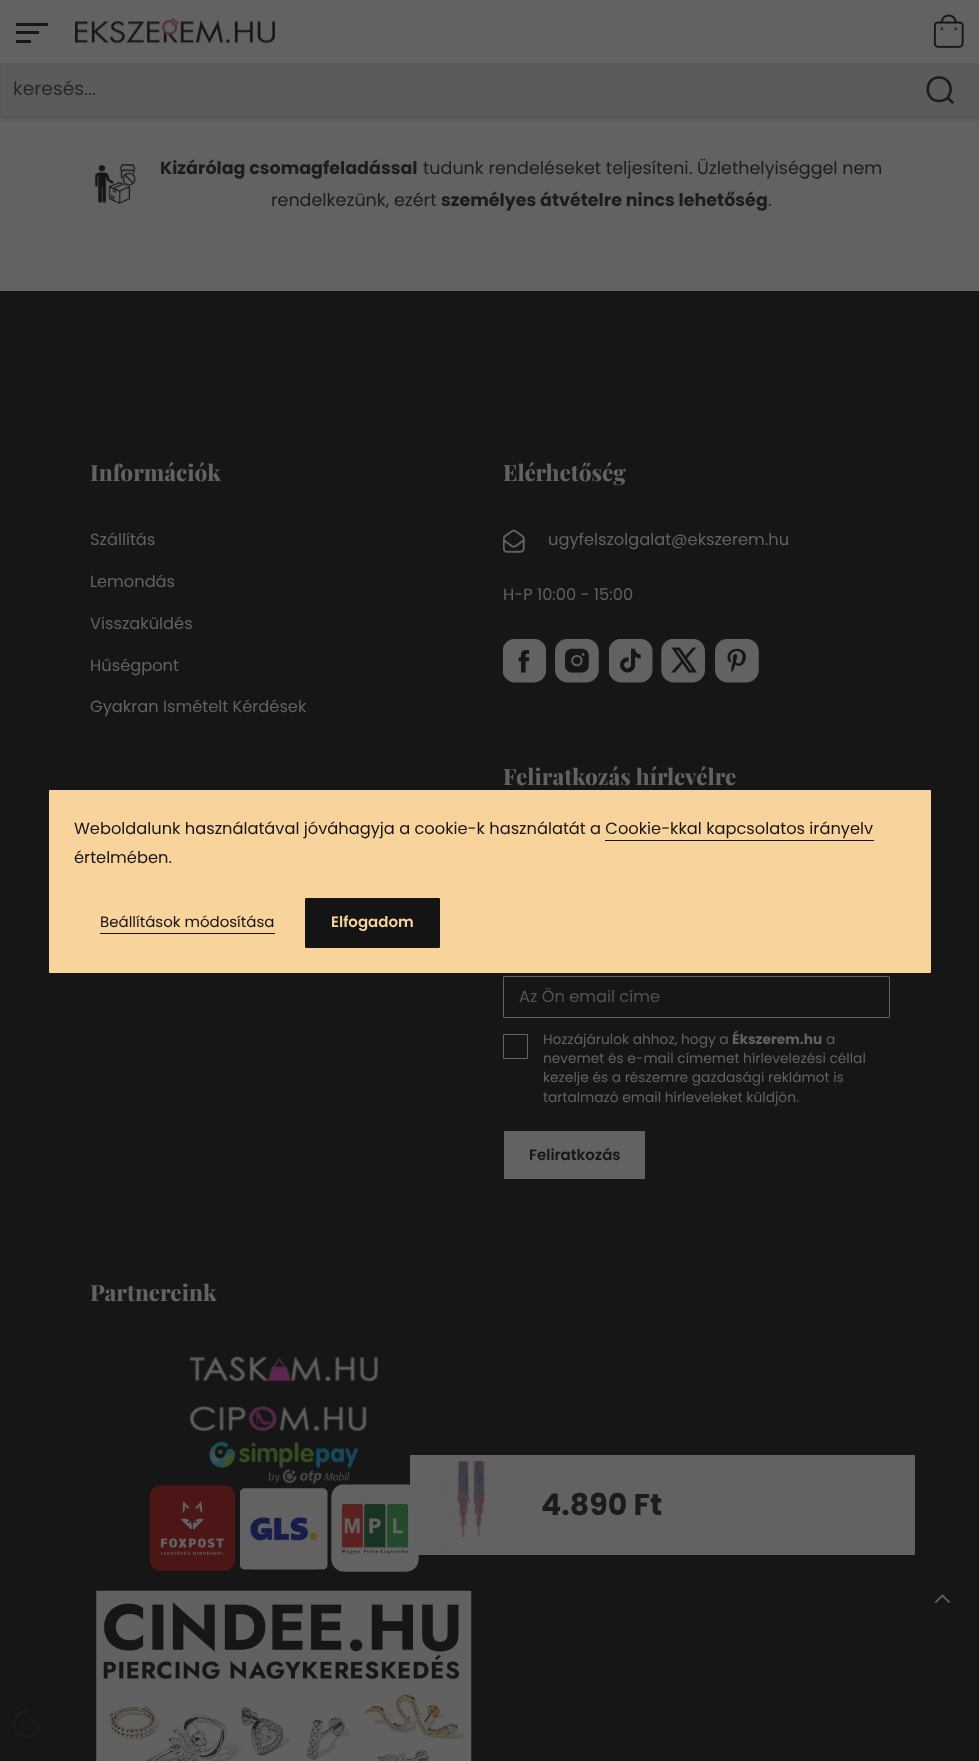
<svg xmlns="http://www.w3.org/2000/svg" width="979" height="1761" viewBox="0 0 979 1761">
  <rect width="100%" height="100%" fill="#626262"/>
  <path d="M0 1h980v117H0z" fill="#16161633" filter="blur(2px)"/>
  <path d="M0 0h979v63H0z" fill="#626262"/>
  <path d="M16 23h32v3H16z" fill="#161616"/>
  <path d="M16 31h23v3H16z" fill="#161616"/>
  <path d="M16 40h15v3H16z" fill="#161616"/>
  <image x="75" y="18" width="200" height="26" href="img/1.png"/>
  <image x="934" y="14" width="30" height="34" href="img/2.png"/>
  <path d="M1 63h978v53H1z" fill="#5b5b5b"/>
  <path d="M952.5 102.5L947.5 97.5M939 101C924 101 924 77.5 939 77.5C954.5 77.5 954.5 101 939 101Z" fill="none" stroke="#1c1c1c" stroke-width="2.5" stroke-linecap="round" stroke-linejoin="round"/>
  <image x="94" y="164" width="42" height="40" href="img/3.png"/>
  <path d="M0 291h979v1470H0z" fill="#161616"/>
  <image x="503" y="529" width="22" height="24" href="img/4.png"/>
  <image x="503" y="639" width="43" height="44" href="img/5.png"/>
  <image x="555" y="639" width="44" height="44" href="img/6.png"/>
  <image x="609" y="639" width="44" height="44" href="img/7.png"/>
  <image x="661" y="639" width="44" height="44" href="img/8.png"/>
  <image x="715" y="639" width="44" height="44" href="img/9.png"/>
  <rect x="503.5" y="976.5" width="386" height="41" rx="0.5" fill="none" stroke="#626262"/>
  <path d="M503.5 1034.5h24v24H503.5z" fill="none" stroke="#626262"/>
  <rect x="503.5" y="1130.5" width="142" height="49" rx="0.5" fill="#626262" stroke="#161616"/>
  <image x="190" y="1355" width="188" height="27" href="img/10.png"/>
  <image x="190" y="1405" width="177" height="26" href="img/11.png"/>
  <image x="209" y="1442" width="149" height="42" href="img/12.png"/>
  <image x="149" y="1485" width="86" height="86" href="img/13.png"/>
  <image x="240" y="1488" width="88" height="82" href="img/14.png"/>
  <image x="331" y="1484" width="88" height="88" href="img/15.png"/>
  <image x="96" y="1590" width="376" height="171" href="img/16.png"/>
  <rect x="410" y="1455" width="505" height="100" rx="1" fill="#626262"/>
  <image x="444" y="1461" width="41" height="87" href="img/17.png"/>
  <image x="935" y="1594" width="15" height="9" href="img/18.png"/>
  <rect x="49" y="790" width="882" height="183" rx="1" fill="#f8d39c"/>
  <path d="M605 840h269v1H605z" fill="#141414"/>
  <path d="M100 933h175v1H100z" fill="#141414"/>
  <rect x="305.5" y="898.5" width="134" height="49" rx="0.5" fill="#141414" stroke="#141414"/>
  <image x="13" y="1709" width="29" height="29" href="img/19.png"/>
  <text x="13" y="95" font-family="Poppins" font-size="18.75" fill="#282828">keresés...</text>
  <text x="160" y="174" font-family="Poppins" font-size="17.5" font-weight="bold" fill="#1c1c1c">Kizárólag csomagfeladással</text>
  <g font-family="Poppins" font-size="17.5" fill="#1c1c1c">
    <text x="423" y="174">tudunk rendeléseket teljesíteni. Üzlethelyiséggel nem</text>
    <text x="271" y="206">rendelkezünk, ezért</text>
  </g>
  <text x="441" y="206" font-family="Poppins" font-size="17.5" font-weight="bold" fill="#1c1c1c">személyes átvételre nincs lehetőség</text>
  <text x="768" y="206" font-family="Poppins" font-size="17.5" fill="#1c1c1c">.</text>
  <text x="90" y="481" font-family="Playfair Display" font-size="22.5" font-weight="800" fill="#626262">Információk</text>
  <g font-family="Poppins" font-size="16.25" fill="#626262">
    <text x="90" y="545">Szállítás</text>
    <text x="90" y="587">Lemondás</text>
    <text x="90" y="629">Visszaküldés</text>
    <text x="90" y="671">Hűségpont</text>
    <text x="90" y="712">Gyakran Ismételt Kérdések</text>
  </g>
  <text x="503" y="481" font-family="Playfair Display" font-size="22.5" font-weight="800" fill="#626262">Elérhetőség</text>
  <g font-family="Poppins" font-size="16.25" fill="#626262">
    <text x="548" y="545">ugyfelszolgalat@ekszerem.hu</text>
    <text x="503" y="600">H-P 10:00 - 15:00</text>
  </g>
  <text x="503" y="785" font-family="Playfair Display" font-size="22.5" font-weight="800" fill="#626262">Feliratkozás hírlevélre</text>
  <text x="519" y="1002" font-family="Poppins" font-size="16.25" fill="#535353">Az Ön email címe</text>
  <text x="543" y="1044" font-family="Poppins" font-size="13.75" fill="#626262">Hozzájárulok ahhoz, hogy a</text>
  <text x="732" y="1044" font-family="Poppins" font-size="13.75" font-weight="bold" fill="#626262">Ékszerem.hu</text>
  <g font-family="Poppins" font-size="13.75" fill="#626262">
    <text x="826" y="1044">a</text>
    <text x="543" y="1063">nevemet és e-mail címemet hírlevelezési céllal</text>
    <text x="543" y="1082">kezelje és a részemre gazdasági reklámot is</text>
    <text x="543" y="1102">tartalmazó email hírleveleket küldjön.</text>
  </g>
  <text x="529" y="1160" font-family="Poppins" font-size="15" font-weight="600" fill="#161616">Feliratkozás</text>
  <text x="90" y="1301" font-family="Playfair Display" font-size="22.5" font-weight="800" fill="#626262">Partnereink</text>
  <text x="541" y="1515" font-family="Poppins" font-size="30" font-weight="bold" fill="#1c1c1c">4.890 Ft</text>
  <g font-family="Poppins" font-size="16.25" fill="#161616">
    <text x="74" y="834">Weboldalunk használatával jóváhagyja a cookie-k használatát a Cookie-kkal kapcsolatos irányelv</text>
    <text x="74" y="863">értelmében.</text>
  </g>
  <text x="100" y="927" font-family="Poppins" font-size="15" fill="#161616">Beállítások módosítása</text>
  <text x="331" y="927" font-family="Poppins" font-size="15" font-weight="600" fill="#f8d39c">Elfogadom</text>
</svg>
